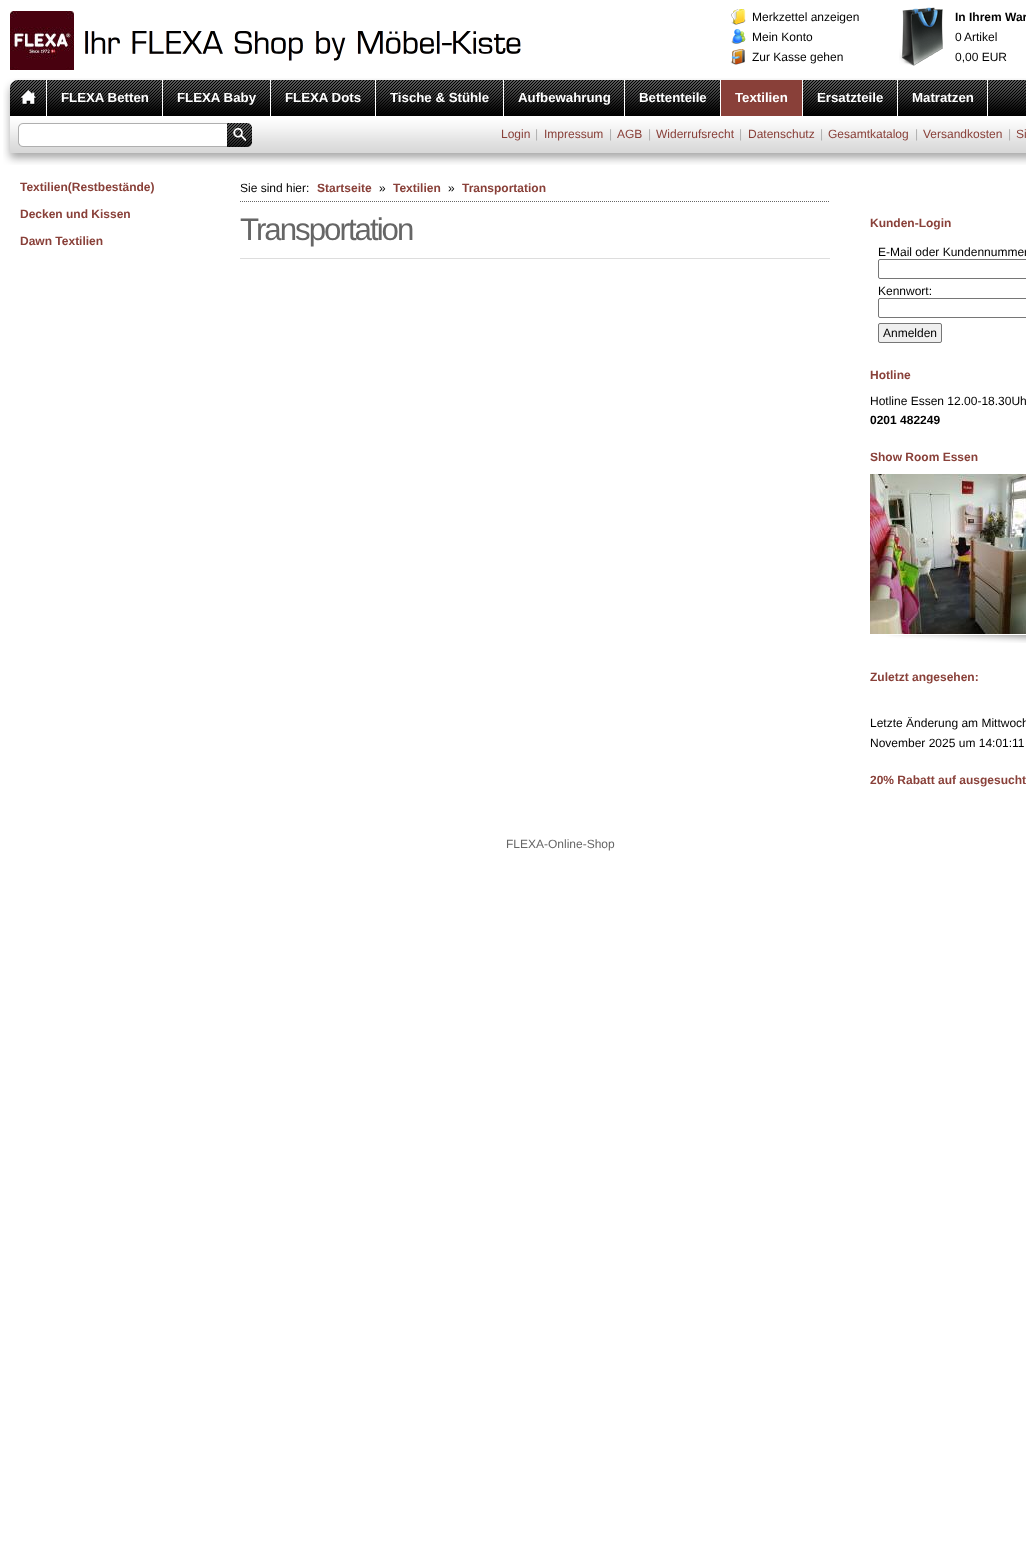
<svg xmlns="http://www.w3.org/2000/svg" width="1026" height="1560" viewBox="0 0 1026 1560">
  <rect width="100%" height="100%" fill="#fff"/>
  <image x="10" y="11" width="64" height="59" href="img/1.png"/>
  <image x="85" y="31" width="436" height="30" href="img/2.png"/>
  <image x="731" y="9" width="15" height="16" href="img/3.png"/>
  <image x="731" y="29" width="15" height="15" href="img/4.png"/>
  <image x="730" y="49" width="15" height="16" href="img/5.png"/>
  <image x="899" y="7" width="44" height="59" href="img/6.png"/>
  <image x="3" y="78" width="1023" height="38" href="img/7.png"/>
  <image x="21" y="80" width="25" height="26" href="img/8.png"/>
  <path d="M46 80h1v36H46z" fill="#fff"/>
  <path d="M162 80h1v36H162z" fill="#fff"/>
  <path d="M270 80h1v36H270z" fill="#fff"/>
  <path d="M375 80h1v36H375z" fill="#fff"/>
  <path d="M503 80h1v36H503z" fill="#fff"/>
  <path d="M624 80h1v36H624z" fill="#fff"/>
  <path d="M720 80h1v36H720z" fill="#fff"/>
  <path d="M721 80h81v36H721z" fill="#894039"/>
  <path d="M802 80h1v36H802z" fill="#fff"/>
  <path d="M897 80h1v36H897z" fill="#fff"/>
  <path d="M987 80h1v36H987z" fill="#fff"/>
  <image x="3" y="116" width="1023" height="49" href="img/9.png"/>
  <image x="18" y="123" width="209" height="24" href="img/10.png"/>
  <image x="227" y="123" width="25" height="24" href="img/11.png"/>
  <image x="240" y="201" width="589" height="1" href="img/12.png"/>
  <path d="M240 258h590v1H240z" fill="#ddd"/>
  <rect x="878.5" y="259.5" width="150" height="19" rx="1.5" fill="none" stroke="#767676"/>
  <rect x="878.5" y="298.5" width="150" height="19" rx="1.5" fill="none" stroke="#767676"/>
  <rect x="878.5" y="323.5" width="63" height="19" rx="1.5" fill="#efefef" stroke="#767676"/>
  <image x="870" y="474" width="156" height="169" href="img/13.png"/>
  <g font-family="Liberation Sans" font-size="12" fill="#000">
    <text x="752" y="21">Merkzettel anzeigen</text>
    <text x="752" y="41">Mein Konto</text>
    <text x="752" y="61">Zur Kasse gehen</text>
  </g>
  <text x="955" y="21" font-family="Liberation Sans" font-size="12" font-weight="bold" fill="#000">In Ihrem War</text>
  <g font-family="Liberation Sans" font-size="12" fill="#000">
    <text x="955" y="41">0</text>
    <text x="964" y="41">Artikel</text>
    <text x="955" y="61">0,00 EUR</text>
  </g>
  <g font-family="Liberation Sans" font-size="13.25" font-weight="bold" fill="#fff">
    <text x="61" y="102">FLEXA Betten</text>
    <text x="177" y="102">FLEXA Baby</text>
    <text x="285" y="102">FLEXA Dots</text>
    <text x="390" y="102">Tische &amp; Stühle</text>
    <text x="518" y="102">Aufbewahrung</text>
    <text x="639" y="102">Bettenteile</text>
    <text x="735" y="102">Textilien</text>
    <text x="817" y="102">Ersatzteile</text>
    <text x="912" y="102">Matratzen</text>
  </g>
  <text x="501" y="138" font-family="Liberation Sans" font-size="12" fill="#894039">Login</text>
  <text x="535" y="138" font-family="Liberation Sans" font-size="12" fill="#afafaf">|</text>
  <text x="544" y="138" font-family="Liberation Sans" font-size="12" fill="#894039">Impressum</text>
  <text x="609" y="138" font-family="Liberation Sans" font-size="12" fill="#afafaf">|</text>
  <text x="617" y="138" font-family="Liberation Sans" font-size="12" fill="#894039">AGB</text>
  <text x="648" y="138" font-family="Liberation Sans" font-size="12" fill="#afafaf">|</text>
  <text x="656" y="138" font-family="Liberation Sans" font-size="12" fill="#894039">Widerrufsrecht</text>
  <text x="739" y="138" font-family="Liberation Sans" font-size="12" fill="#afafaf">|</text>
  <text x="748" y="138" font-family="Liberation Sans" font-size="12" fill="#894039">Datenschutz</text>
  <text x="820" y="138" font-family="Liberation Sans" font-size="12" fill="#afafaf">|</text>
  <text x="828" y="138" font-family="Liberation Sans" font-size="12" fill="#894039">Gesamtkatalog</text>
  <text x="915" y="138" font-family="Liberation Sans" font-size="12" fill="#afafaf">|</text>
  <text x="923" y="138" font-family="Liberation Sans" font-size="12" fill="#894039">Versandkosten</text>
  <text x="1008" y="138" font-family="Liberation Sans" font-size="12" fill="#afafaf">|</text>
  <text x="1016" y="138" font-family="Liberation Sans" font-size="12" fill="#894039">Si</text>
  <g font-family="Liberation Sans" font-size="12" font-weight="bold" fill="#894039">
    <text x="20" y="191">Textilien(Restbestände)</text>
    <text x="20" y="218">Decken und Kissen</text>
    <text x="20" y="245">Dawn Textilien</text>
  </g>
  <text x="240" y="192" font-family="Liberation Sans" font-size="12" fill="#000">Sie sind hier:</text>
  <text x="317" y="192" font-family="Liberation Sans" font-size="12" font-weight="bold" fill="#894039">Startseite</text>
  <text x="379" y="192" font-family="Liberation Sans" font-size="12" fill="#000">»</text>
  <text x="393" y="192" font-family="Liberation Sans" font-size="12" font-weight="bold" fill="#894039">Textilien</text>
  <text x="448" y="192" font-family="Liberation Sans" font-size="12" fill="#000">»</text>
  <text x="462" y="192" font-family="Liberation Sans" font-size="12" font-weight="bold" fill="#894039">Transportation</text>
  <text x="240" y="240" font-family="Liberation Sans" font-size="31.25" letter-spacing="-2" fill="#666">Transportation</text>
  <text x="870" y="227" font-family="Liberation Sans" font-size="12" font-weight="bold" fill="#894039">Kunden-Login</text>
  <g font-family="Liberation Sans" font-size="12" fill="#000">
    <text x="878" y="256">E-Mail oder Kundennummer</text>
    <text x="878" y="295">Kennwort:</text>
    <text x="883" y="337">Anmelden</text>
  </g>
  <text x="870" y="379" font-family="Liberation Sans" font-size="12" font-weight="bold" fill="#894039">Hotline</text>
  <text x="870" y="405" font-family="Liberation Sans" font-size="12" fill="#000">Hotline Essen 12.00-18.30Uh</text>
  <text x="870" y="424" font-family="Liberation Sans" font-size="12" font-weight="bold" fill="#000">0201 482249</text>
  <g font-family="Liberation Sans" font-size="12" font-weight="bold" fill="#894039">
    <text x="870" y="461">Show Room Essen</text>
    <text x="870" y="681">Zuletzt angesehen:</text>
  </g>
  <g font-family="Liberation Sans" font-size="12" fill="#000">
    <text x="870" y="727">Letzte Änderung am Mittwoch</text>
    <text x="870" y="747">November 2025 um 14:01:11</text>
  </g>
  <text x="870" y="784" font-family="Liberation Sans" font-size="12" font-weight="bold" fill="#894039">20% Rabatt auf ausgesucht</text>
  <text x="506" y="848" font-family="Liberation Sans" font-size="12" fill="#666">FLEXA-Online-Shop</text>
</svg>
